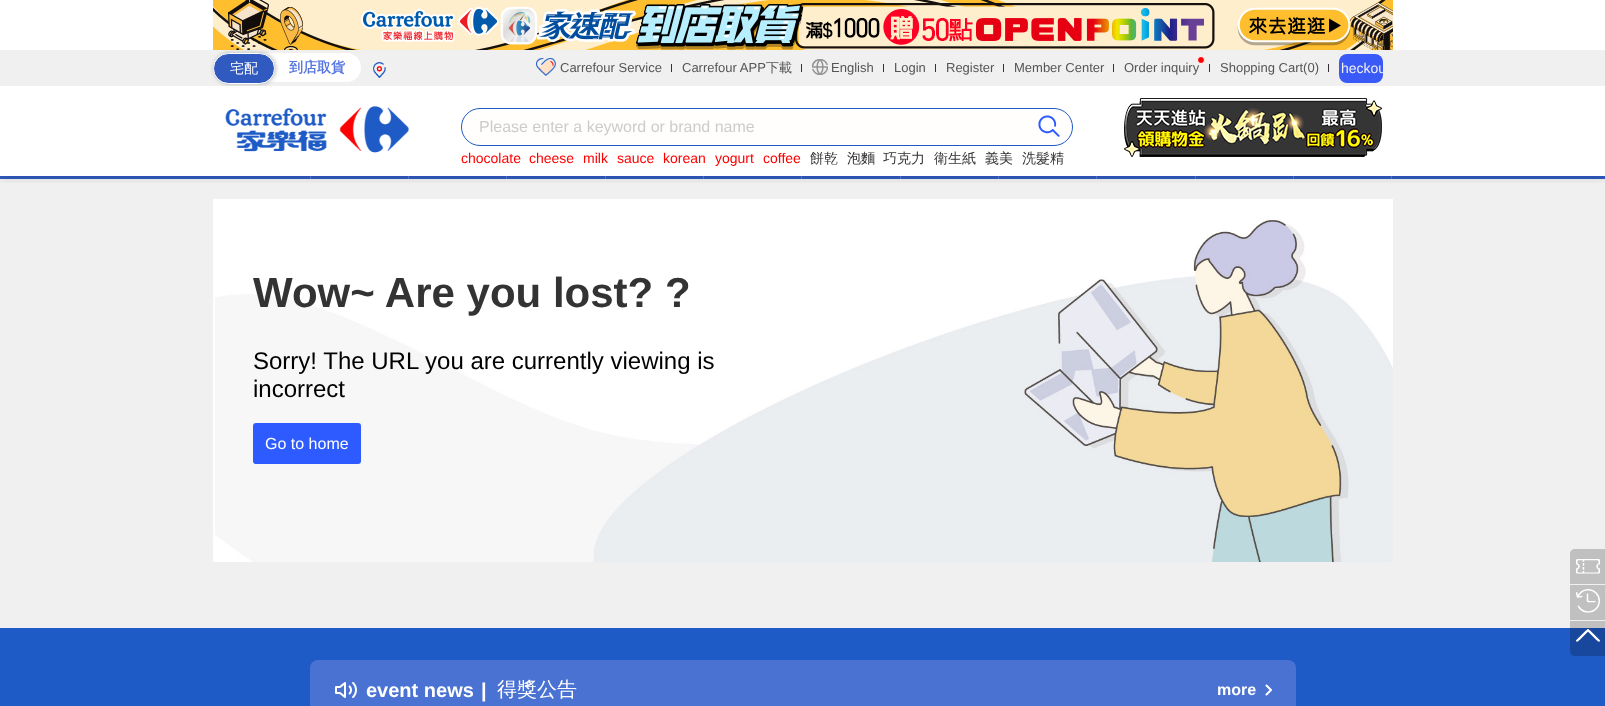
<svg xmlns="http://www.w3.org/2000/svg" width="1605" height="706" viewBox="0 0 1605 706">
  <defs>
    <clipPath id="clip1"><path d="M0 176h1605v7H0z"/></clipPath>
  </defs>
  <rect width="100%" height="100%" fill="#f0f0f0"/>
  <path d="M0 0h1605v176H0z" fill="#fff"/>
  <path d="M0 176h1605v3H0z" fill="#305abf"/>
  <path d="M310 176h1v3H310z" fill="#5877e1"/>
  <path d="M408 176h1v3H408z" fill="#5877e1"/>
  <path d="M506 176h1v3H506z" fill="#5877e1"/>
  <path d="M605 176h1v3H605z" fill="#5877e1"/>
  <path d="M703 176h1v3H703z" fill="#5877e1"/>
  <path d="M801 176h1v3H801z" fill="#5877e1"/>
  <path d="M900 176h1v3H900z" fill="#5877e1"/>
  <path d="M998 176h1v3H998z" fill="#5877e1"/>
  <path d="M1096 176h1v3H1096z" fill="#5877e1"/>
  <path d="M1195 176h1v3H1195z" fill="#5877e1"/>
  <path d="M1293 176h1v3H1293z" fill="#5877e1"/>
  <path d="M1391 176h1v3H1391z" fill="#5877e1"/>
  <g clip-path="url(#clip1)">
    <path d="M0 3h1605v176H0z" fill="#0000001a" filter="blur(5px)"/>
  </g>
  <image x="213" y="0" width="1180" height="50" href="img/1.png"/>
  <path d="M0 50h1605v36H0z" fill="#f0f0f0"/>
  <rect x="213" y="53" width="148" height="29" rx="14.5" fill="#fff"/>
  <rect x="214" y="53" width="62" height="31" rx="15.5" fill="#00000040" filter="blur(2px)"/>
  <rect x="213.5" y="53.5" width="61" height="30" rx="15" fill="#305abf" stroke="#fff"/>
  <image x="373" y="62" width="13" height="16" href="img/2.png"/>
  <image x="536" y="58" width="20" height="18" href="img/3.png"/>
  <path d="M671 64h1v8H671z" fill="#333"/>
  <path d="M801 64h1v8H801z" fill="#333"/>
  <image x="812" y="59" width="16" height="16" href="img/4.png"/>
  <path d="M883 64h1v8H883z" fill="#333"/>
  <path d="M935 64h1v8H935z" fill="#333"/>
  <path d="M1003 64h1v8H1003z" fill="#333"/>
  <path d="M1113 64h1v8H1113z" fill="#333"/>
  <path d="M1209 64h1v8H1209z" fill="#333"/>
  <path d="M1328 64h1v8H1328z" fill="#333"/>
  <rect x="1339" y="54" width="44" height="29" rx="8" fill="#395af6"/>
  <path d="M224 86h42v1H224z" fill="#fff"/>
  <image x="225" y="106" width="184" height="47" href="img/5.png"/>
  <rect x="461.5" y="108.5" width="611" height="37" rx="18.5" fill="#fffefc" stroke="#1e5bc6"/>
  <image x="1038" y="115" width="22" height="22" href="img/6.png"/>
  <image x="1124" y="98" width="258" height="59" href="img/7.png"/>
  <image x="213" y="199" width="1180" height="363" href="img/8.png"/>
  <rect x="253" y="423" width="108" height="41" rx="3" fill="#2e5bff"/>
  <path d="M1575 549H1605V584H1570V554C1570 551 1572 549 1575 549Z" fill="#c0c0c0"/>
  <image x="1576" y="559" width="24" height="15" href="img/9.png"/>
  <path d="M1570 585h35v35H1570z" fill="#c0c0c0"/>
  <image x="1576" y="589" width="24" height="24" href="img/10.png"/>
  <path d="M0 628h1605v78H0z" fill="#1e5bc6"/>
  <path d="M1570 621H1605V656H1575C1572 656 1570 654 1570 651Z" fill="#00000033"/>
  <image x="1576" y="629" width="24" height="13" href="img/11.png"/>
  <rect x="310" y="660" width="986" height="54" rx="8" fill="#4a72d3"/>
  <image x="335" y="682" width="22" height="16" href="img/12.png"/>
  <path d="M1266.5 685.5L1271 690L1266.5 694.5" fill="none" stroke="#fff" stroke-width="2" stroke-linecap="round" stroke-linejoin="round"/>
  <text x="230" y="73" font-family="WenQuanYi Zen Hei" font-size="14" font-weight="500" fill="#fff">宅配</text>
  <text x="289" y="72" font-family="WenQuanYi Zen Hei" font-size="14" font-weight="bold" fill="#5877e1">到店取貨</text>
  <g font-family="Liberation Sans" font-size="13" fill="#555">
    <text x="560" y="72">Carrefour Service</text>
    <text x="682" y="72">Carrefour APP</text>
  </g>
  <text x="766" y="72" font-family="WenQuanYi Zen Hei" font-size="13" font-weight="500" fill="#555">下載</text>
  <g font-family="Liberation Sans" font-size="13" fill="#555">
    <text x="831" y="72">English</text>
    <text x="894" y="72">Login</text>
    <text x="946" y="72">Register</text>
    <text x="1014" y="72">Member Center</text>
    <text x="1124" y="72">Order inquiry</text>
  </g>
  <circle cx="1201" cy="60" r="3.5" fill="#f00" stroke="#fff"/>
  <text x="1220" y="72" font-family="Liberation Sans" font-size="13" fill="#555">Shopping Cart(0)</text>
  <text x="1341" y="73" font-family="Liberation Sans" font-size="14" fill="#f0f0f0">heckou</text>
  <text x="479" y="132" font-family="Liberation Sans" font-size="16" fill="#ccc">Please enter a keyword or brand name</text>
  <g font-family="Liberation Sans" font-size="14" fill="#f00">
    <text x="461" y="163">chocolate</text>
    <text x="529" y="163">cheese</text>
    <text x="583" y="163">milk</text>
    <text x="617" y="163">sauce</text>
    <text x="663" y="163">korean</text>
    <text x="715" y="163">yogurt</text>
    <text x="763" y="163">coffee</text>
  </g>
  <g font-family="WenQuanYi Zen Hei" font-size="14" font-weight="500" fill="#333">
    <text x="810" y="163">餅乾</text>
    <text x="847" y="163">泡麵</text>
    <text x="883" y="163">巧克力</text>
    <text x="934" y="163">衛生紙</text>
    <text x="985" y="163">義美</text>
    <text x="1022" y="163">洗髮精</text>
  </g>
  <text x="253" y="307" font-family="Liberation Sans" font-size="42" font-weight="bold" fill="#333">Wow~ Are you lost? ?</text>
  <g font-family="Liberation Sans" font-size="24" fill="#000">
    <text x="253" y="369">Sorry! The URL you are currently viewing is</text>
    <text x="253" y="397">incorrect</text>
  </g>
  <text x="265" y="449" font-family="Liberation Sans" font-size="16" fill="#fff">Go to home</text>
  <g font-family="Liberation Sans" font-size="20" font-weight="bold" fill="#fff">
    <text x="366" y="697">event news</text>
    <text x="481" y="697">|</text>
  </g>
  <text x="497" y="696" font-family="WenQuanYi Zen Hei" font-size="20" font-weight="500" fill="#fff">得獎公告</text>
  <text x="1217" y="695" font-family="Liberation Sans" font-size="16" font-weight="bold" fill="#fff">more</text>
</svg>
